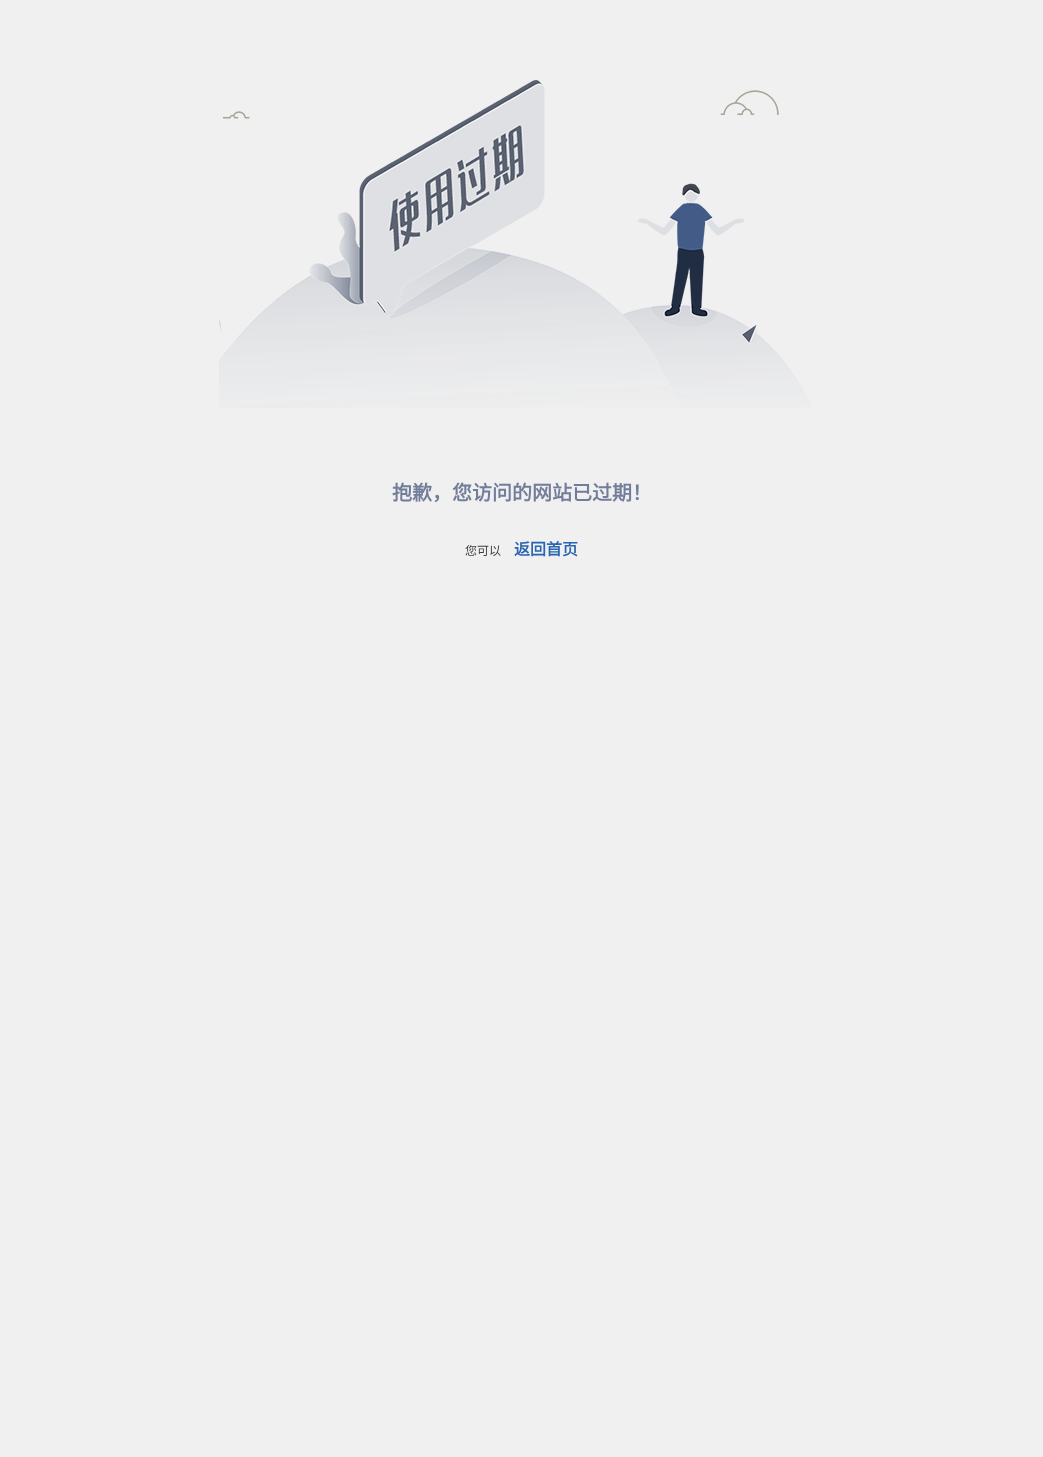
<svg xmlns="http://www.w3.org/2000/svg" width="1043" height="1457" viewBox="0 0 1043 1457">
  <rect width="100%" height="100%" fill="#f0f0f0"/>
  <image x="219" y="80" width="592" height="328" href="img/1.png"/>
  <text x="392" y="500" font-family="Noto Sans CJK SC" font-size="20" font-weight="bold" fill="#727d99">抱歉，您访问的网站已过期！</text>
  <text x="465" y="555" font-family="Noto Sans CJK SC" font-size="12" fill="#404040">您可以</text>
  <text x="514" y="555" font-family="Noto Sans CJK SC" font-size="16" font-weight="bold" fill="#2965b1">返回首页</text>
</svg>
